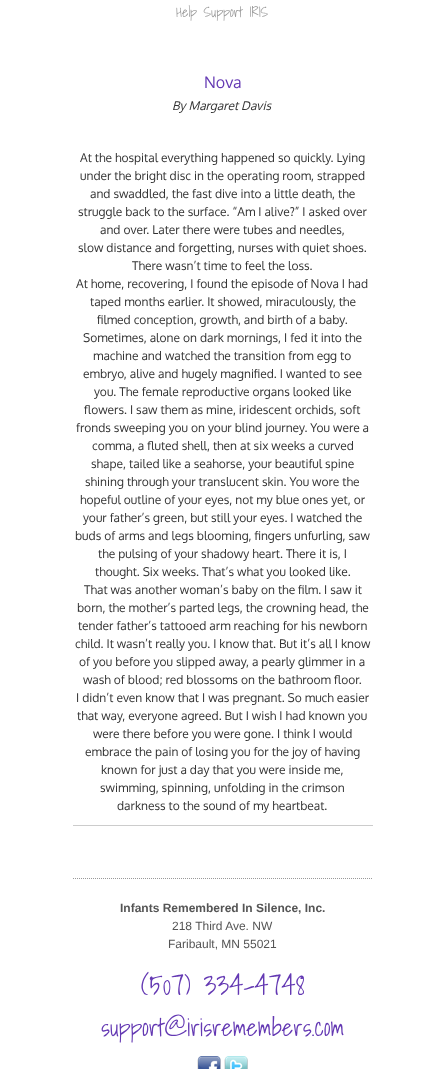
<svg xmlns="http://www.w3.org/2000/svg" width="445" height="1069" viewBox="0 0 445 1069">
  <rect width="100%" height="100%" fill="#fff"/>
  <path d="M73 825h300v1H73z" fill="#ccc"/>
  <path d="M73 878.5H373" fill="none" stroke="#999" stroke-dasharray="1 1"/>
  <image x="197" y="1056" width="24" height="13" href="img/1.png"/>
  <image x="224" y="1056" width="24" height="13" href="img/2.png"/>
  <text x="176" y="17" font-family="Shadows Into Light" font-size="14" font-weight="300" fill="#999">Help Support IRIS</text>
  <text x="204" y="88" font-family="Oxygen" font-size="16" fill="#6439b3">Nova</text>
  <text x="172" y="110" font-family="Oxygen" font-size="12" font-style="italic" fill="#333">By Margaret Davis</text>
  <g font-family="Oxygen" font-size="12" fill="#333">
    <text x="80" y="162">At the hospital everything happened so quickly. Lying</text>
    <text x="80" y="180">under the bright disc in the operating room, strapped</text>
    <text x="90" y="198">and swaddled, the fast dive into a little death, the</text>
    <text x="78" y="216">struggle back to the surface. “Am I alive?” I asked over</text>
    <text x="100" y="234">and over. Later there were tubes and needles,</text>
    <text x="78" y="252">slow distance and forgetting, nurses with quiet shoes.</text>
    <text x="132" y="270">There wasn’t time to feel the loss.</text>
    <text x="76" y="288">At home, recovering, I found the episode of Nova I had</text>
    <text x="90" y="306">taped months earlier. It showed, miraculously, the</text>
    <text x="97" y="324">filmed conception, growth, and birth of a baby.</text>
    <text x="83" y="342">Sometimes, alone on dark mornings, I fed it into the</text>
    <text x="93" y="360">machine and watched the transition from egg to</text>
    <text x="83" y="378">embryo, alive and hugely magnified. I wanted to see</text>
    <text x="94" y="396">you. The female reproductive organs looked like</text>
    <text x="84" y="414">flowers. I saw them as mine, iridescent orchids, soft</text>
    <text x="76" y="432">fronds sweeping you on your blind journey. You were a</text>
    <text x="92" y="450">comma, a fluted shell, then at six weeks a curved</text>
    <text x="91" y="468">shape, tailed like a seahorse, your beautiful spine</text>
    <text x="85" y="486">shining through your translucent skin. You wore the</text>
    <text x="80" y="504">hopeful outline of your eyes, not my blue ones yet, or</text>
    <text x="83" y="522">your father’s green, but still your eyes. I watched the</text>
    <text x="75" y="540">buds of arms and legs blooming, fingers unfurling, saw</text>
    <text x="98" y="558">the pulsing of your shadowy heart. There it is, I</text>
    <text x="95" y="576">thought. Six weeks. That’s what you looked like.</text>
    <text x="84" y="594">That was another woman’s baby on the film. I saw it</text>
    <text x="77" y="612">born, the mother’s parted legs, the crowning head, the</text>
    <text x="78" y="630">tender father’s tattooed arm reaching for his newborn</text>
    <text x="75" y="648">child. It wasn’t really you. I know that. But it’s all I know</text>
    <text x="79" y="666">of you before you slipped away, a pearly glimmer in a</text>
    <text x="83" y="684">wash of blood; red blossoms on the bathroom floor.</text>
    <text x="76" y="702">I didn’t even know that I was pregnant. So much easier</text>
    <text x="77" y="720">that way, everyone agreed. But I wish I had known you</text>
    <text x="93" y="738">were there before you were gone. I think I would</text>
    <text x="85" y="756">embrace the pain of losing you for the joy of having</text>
    <text x="101" y="774">known for just a day that you were inside me,</text>
    <text x="100" y="792">swimming, spinning, unfolding in the crimson</text>
    <text x="117" y="810">darkness to the sound of my heartbeat.</text>
  </g>
  <text x="120" y="912" font-family="Liberation Sans" font-size="12" font-weight="bold" fill="#555">Infants Remembered In Silence, Inc.</text>
  <g font-family="Liberation Sans" font-size="12" fill="#555">
    <text x="172" y="930">218 Third Ave. NW</text>
    <text x="168" y="948">Faribault, MN 55021</text>
  </g>
  <text x="141" y="995" font-family="Shadows Into Light" font-size="28" font-weight="300" fill="#6439b3">(507) 334-4748</text>
  <text x="101" y="1036" font-family="Shadows Into Light" font-size="24" font-weight="300" fill="#6439b3">support@irisremembers.com</text>
</svg>
